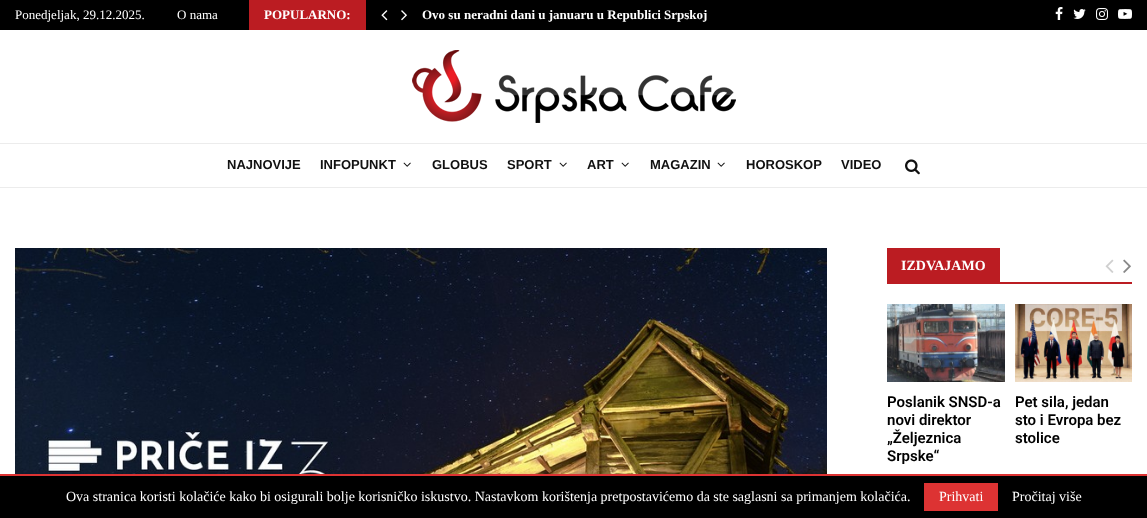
<svg xmlns="http://www.w3.org/2000/svg" width="1147" height="518" viewBox="0 0 1147 518">
  <rect width="100%" height="100%" fill="#fff"/>
  <path d="M0 0h1147v30H0z" fill="#000"/>
  <path d="M249 0h117v30H249z" fill="#bb1c22"/>
  <image x="381" y="10" width="7" height="11" href="img/1.png"/>
  <image x="401" y="10" width="6" height="11" href="img/2.png"/>
  <image x="1055" y="7" width="8" height="13" href="img/3.png"/>
  <image x="1073" y="9" width="13" height="10" href="img/4.png"/>
  <image x="1096" y="8" width="12" height="12" href="img/5.png"/>
  <image x="1118" y="9" width="14" height="10" href="img/6.png"/>
  <image x="412" y="50" width="324" height="73" href="img/7.png"/>
  <path d="M0 187h1147v1H0z" fill="#ececec"/>
  <path d="M0 143h1147v1H0z" fill="#ececec"/>
  <image x="403" y="162" width="8" height="5" href="img/8.png"/>
  <image x="559" y="162" width="8" height="5" href="img/8.png"/>
  <image x="621" y="162" width="8" height="5" href="img/8.png"/>
  <image x="717" y="162" width="8" height="5" href="img/8.png"/>
  <image x="905" y="159" width="15" height="16" href="img/9.png"/>
  <image x="15" y="248" width="812" height="226" href="img/10.png"/>
  <path d="M1000 282h132v2H1000z" fill="#bb1c22"/>
  <path d="M887 248h113v36H887z" fill="#bb1c22"/>
  <image x="1105" y="259" width="9" height="14" href="img/11.png"/>
  <image x="1123" y="259" width="8" height="14" href="img/12.png"/>
  <image x="887" y="304" width="118" height="78" href="img/13.png"/>
  <image x="1015" y="304" width="117" height="78" href="img/14.png"/>
  <path d="M0 476h1147v42H0z" fill="#000"/>
  <path d="M0 474h1147v2H0z" fill="#d33"/>
  <path d="M924 483h74v28H924z" fill="#d33"/>
  <g font-family="Liberation Serif" font-size="13" fill="#fff">
    <text x="15" y="19">Ponedjeljak, 29.12.2025.</text>
    <text x="177" y="19">O nama</text>
  </g>
  <g font-family="Liberation Serif" font-size="13" font-weight="bold" fill="#fff">
    <text x="264" y="19">POPULARNO:</text>
    <text x="422" y="19">Ovo su neradni dani u januaru u Republici Srpskoj</text>
  </g>
  <g font-family="Liberation Sans" font-size="13" font-weight="bold" fill="#111">
    <text x="227" y="169">NAJNOVIJE</text>
    <text x="320" y="169">INFOPUNKT</text>
    <text x="432" y="169">GLOBUS</text>
    <text x="507" y="169">SPORT</text>
    <text x="587" y="169">ART</text>
    <text x="650" y="169">MAGAZIN</text>
    <text x="746" y="169">HOROSKOP</text>
    <text x="841" y="169">VIDEO</text>
  </g>
  <text x="901" y="270" font-family="Liberation Serif" font-size="14" font-weight="bold" fill="#fff">IZDVAJAMO</text>
  <g font-family="Roboto" font-size="15" font-weight="600" fill="#000">
    <text x="887" y="407">Poslanik SNSD-a</text>
    <text x="887" y="425">novi direktor</text>
    <text x="887" y="443">„Željeznica</text>
    <text x="887" y="461">Srpske“</text>
    <text x="1015" y="407">Pet sila, jedan</text>
    <text x="1015" y="425">sto i Evropa bez</text>
    <text x="1015" y="443">stolice</text>
  </g>
  <g font-family="Liberation Serif" font-size="14" fill="#fff">
    <text x="66" y="501">Ova stranica koristi kolačiće kako bi osigurali bolje korisničko iskustvo. Nastavkom korištenja pretpostavićemo da ste saglasni sa primanjem kolačića.</text>
    <text x="939" y="501">Prihvati</text>
    <text x="1012" y="501">Pročitaj više</text>
  </g>
</svg>
